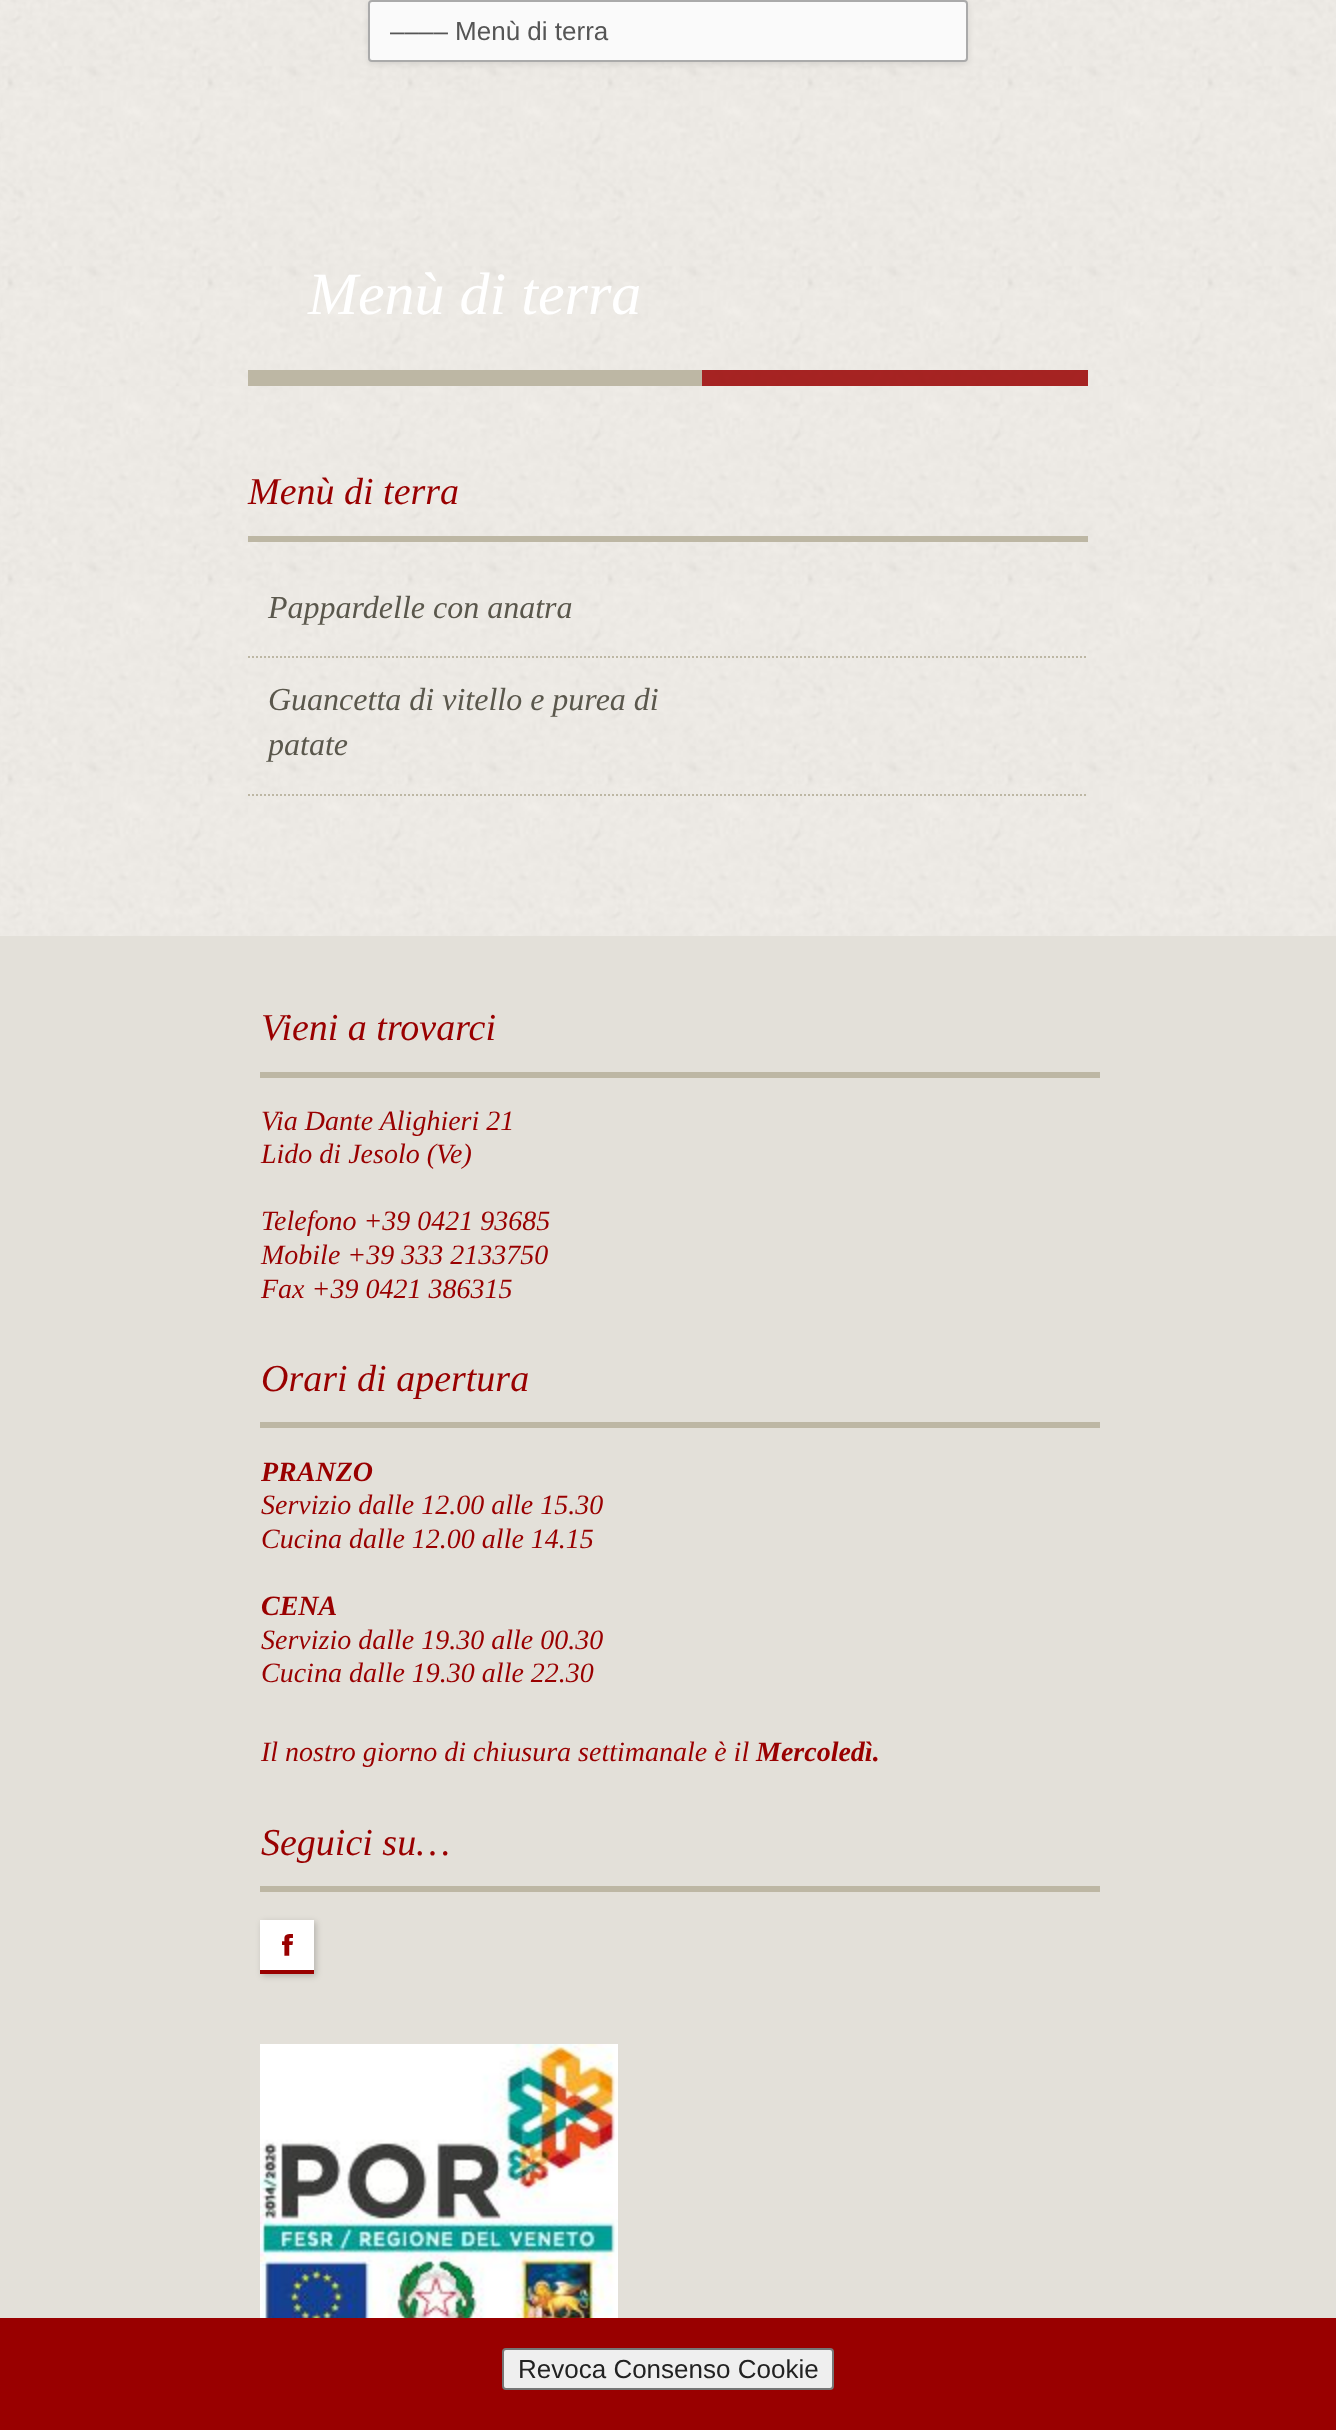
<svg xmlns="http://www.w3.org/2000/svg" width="1336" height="2430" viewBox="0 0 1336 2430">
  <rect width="100%" height="100%" fill="#fff"/>
  <image x="0" y="0" width="1336" height="386" href="img/1.png"/>
  <rect x="368" y="2" width="600" height="62" rx="4" fill="#0000001a" filter="blur(3px)"/>
  <rect x="369" y="1" width="598" height="60" rx="3" fill="#fafafa" stroke="#aaa" stroke-width="2"/>
  <path d="M248 370h454v16H248z" fill="#bdb7a4"/>
  <path d="M702 370h386v16H702z" fill="#990000d9"/>
  <image x="0" y="386" width="1336" height="550" href="img/2.png"/>
  <path d="M248 536h840v6H248z" fill="#bdb7a4"/>
  <path d="M248 657H1088" fill="none" stroke="#bdb7a4" stroke-width="2" stroke-dasharray="2 2"/>
  <path d="M248 795H1088" fill="none" stroke="#bdb7a4" stroke-width="2" stroke-dasharray="2 2"/>
  <path d="M0 936h1336v1382H0z" fill="#e3e0d9"/>
  <path d="M260 1072h840v6H260z" fill="#bdb7a4"/>
  <path d="M260 1422h840v6H260z" fill="#bdb7a4"/>
  <path d="M260 1886h840v6H260z" fill="#bdb7a4"/>
  <path d="M262 1922h54v54H262z" fill="#00000033" filter="blur(3px)"/>
  <path d="M260 1920h54v50H260z" fill="#fff"/>
  <path d="M260 1970h54v4H260z" fill="#900"/>
  <image x="260" y="2044" width="358" height="274" href="img/3.png"/>
  <path d="M0 2318h1336v112H0z" fill="#900"/>
  <rect x="503" y="2349" width="330" height="40" rx="3" fill="#efefef" stroke="#767676" stroke-width="2"/>
  <text x="390" y="40" font-family="Liberation Sans" font-size="26" fill="#555">–––– Menù di terra</text>
  <text x="308" y="314" font-family="Liberation Serif" font-size="60" font-style="italic" fill="#fff">Menù di terra</text>
  <text x="248" y="504" font-family="Liberation Serif" font-size="38" font-style="italic" fill="#900">Menù di terra</text>
  <g font-family="Liberation Serif" font-size="32" font-style="italic" fill="#5a574c">
    <text x="268" y="618">Pappardelle con anatra</text>
    <text x="268" y="710">Guancetta di vitello e purea di</text>
    <text x="268" y="755">patate</text>
  </g>
  <text x="261" y="1040" font-family="Liberation Serif" font-size="38" font-style="italic" fill="#900">Vieni a trovarci</text>
  <g font-family="Liberation Serif" font-size="28" font-style="italic" fill="#900">
    <text x="261" y="1130">Via Dante Alighieri 21</text>
    <text x="261" y="1163">Lido di Jesolo (Ve)</text>
    <text x="261" y="1230">Telefono +39 0421 93685</text>
    <text x="261" y="1264">Mobile +39 333 2133750</text>
    <text x="261" y="1298">Fax +39 0421 386315</text>
  </g>
  <text x="261" y="1391" font-family="Liberation Serif" font-size="38" font-style="italic" fill="#900">Orari di apertura</text>
  <text x="261" y="1481" font-family="Liberation Serif" font-size="28" font-weight="bold" font-style="italic" fill="#900">PRANZO</text>
  <g font-family="Liberation Serif" font-size="28" font-style="italic" fill="#900">
    <text x="261" y="1514">Servizio dalle 12.00 alle 15.30</text>
    <text x="261" y="1548">Cucina dalle 12.00 alle 14.15</text>
  </g>
  <text x="261" y="1615" font-family="Liberation Serif" font-size="28" font-weight="bold" font-style="italic" fill="#900">CENA</text>
  <g font-family="Liberation Serif" font-size="28" font-style="italic" fill="#900">
    <text x="261" y="1649">Servizio dalle 19.30 alle 00.30</text>
    <text x="261" y="1682">Cucina dalle 19.30 alle 22.30</text>
    <text x="261" y="1761">Il nostro giorno di chiusura settimanale è il</text>
  </g>
  <text x="756" y="1761" font-family="Liberation Serif" font-size="28" font-weight="bold" font-style="italic" fill="#900">Mercoledì.</text>
  <text x="261" y="1855" font-family="Liberation Serif" font-size="38" font-style="italic" fill="#900">Seguici su…</text>
  <text x="275" y="1955" font-family="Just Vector" font-size="30" fill="#900">F</text>
  <text x="518" y="2378" font-family="Liberation Sans" font-size="26" fill="#222">Revoca Consenso Cookie</text>
</svg>
